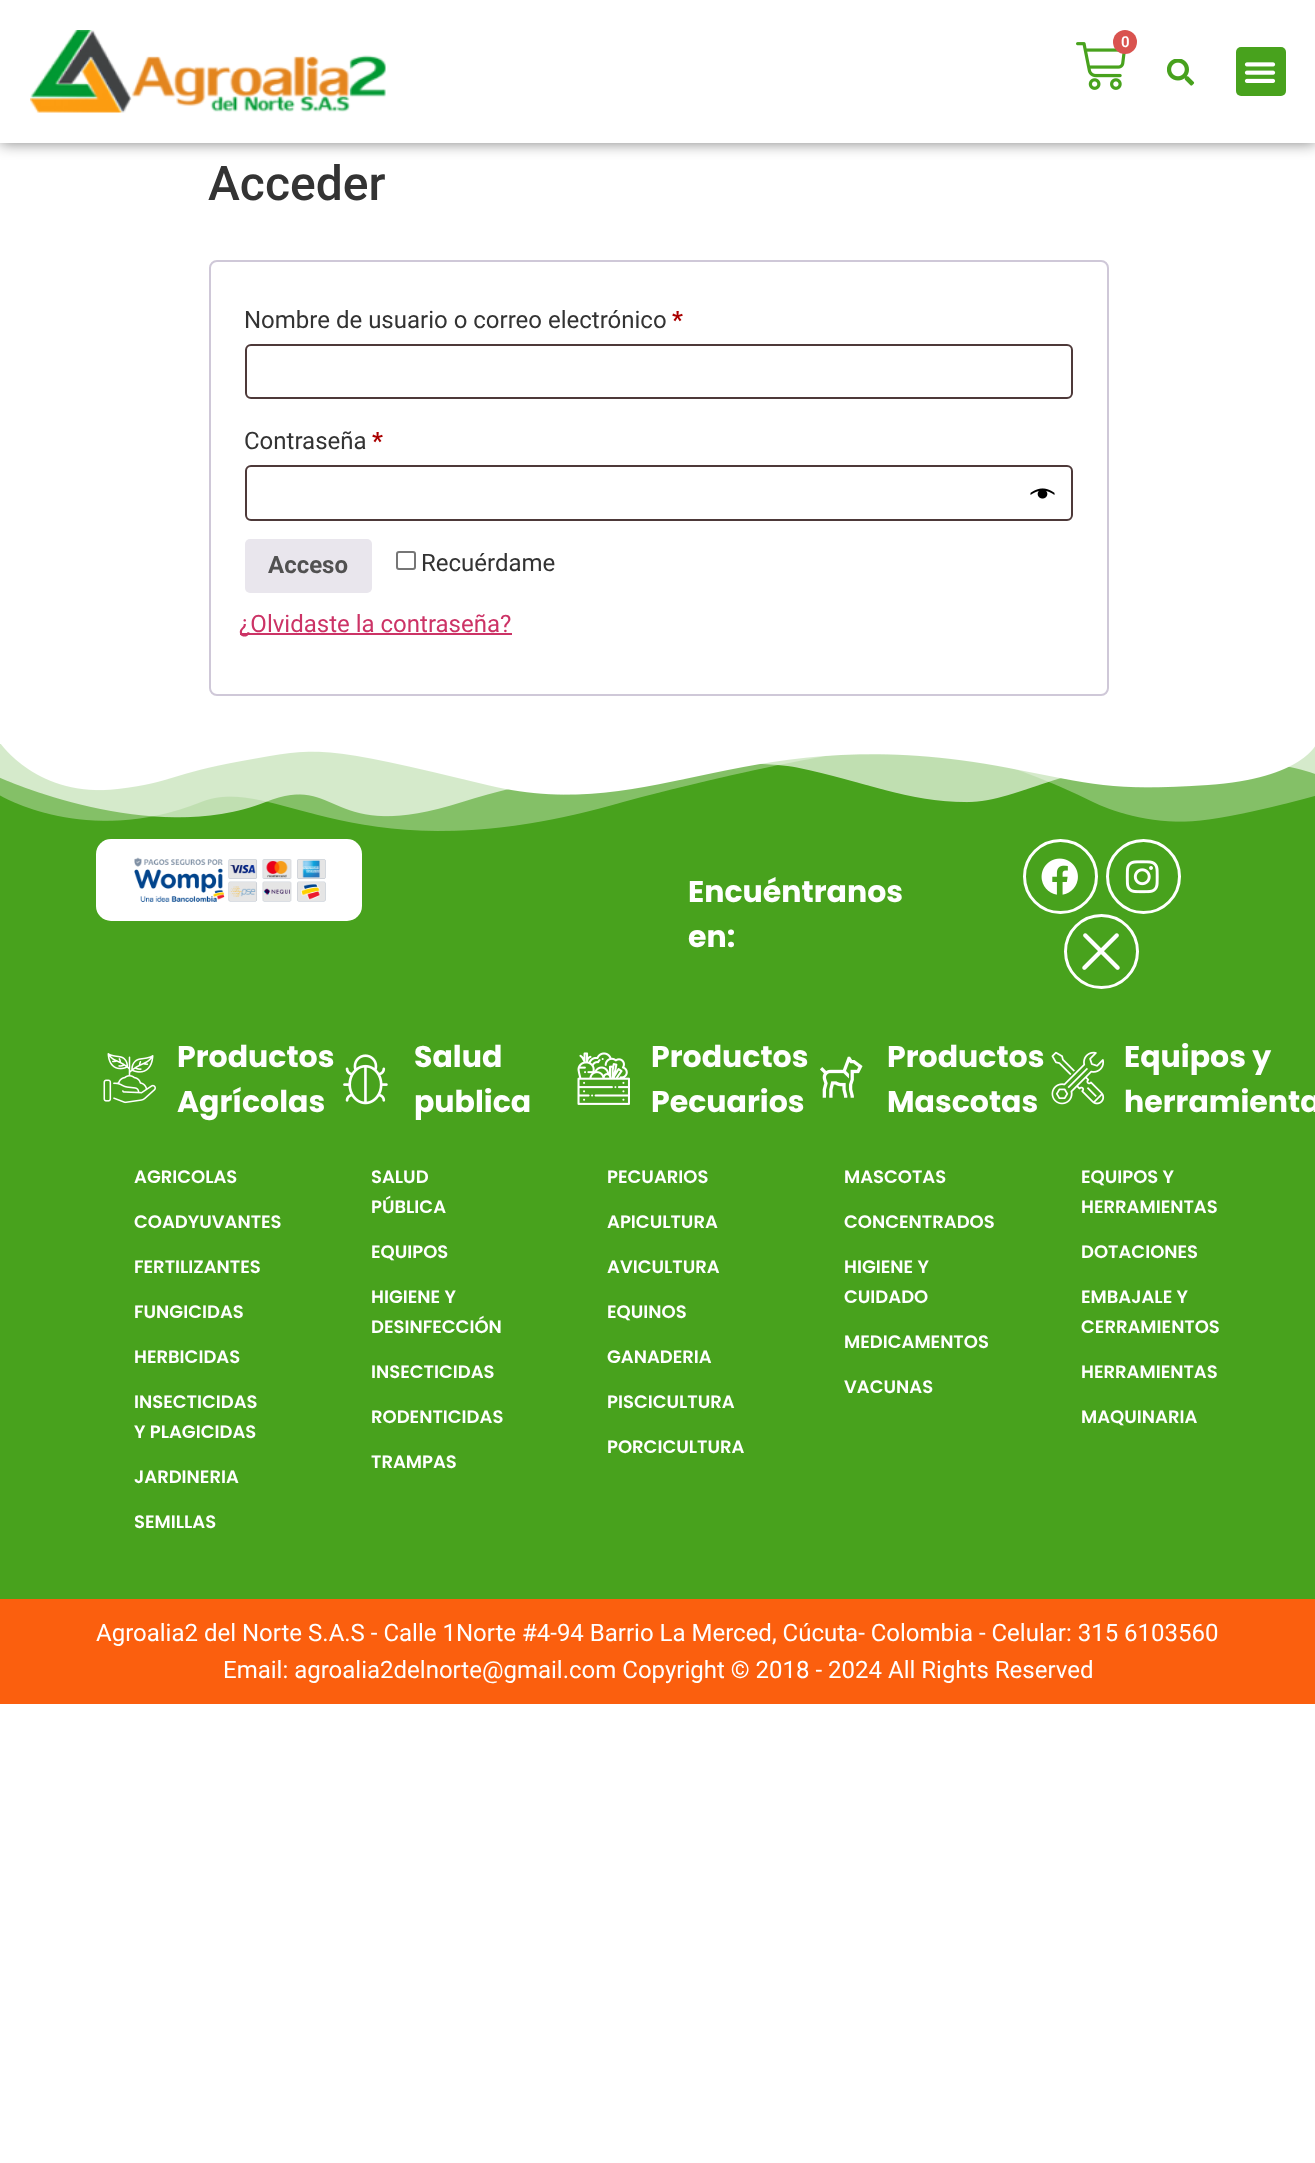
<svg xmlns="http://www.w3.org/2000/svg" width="1315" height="2163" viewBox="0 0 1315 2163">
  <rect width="100%" height="100%" fill="#fff"/>
  <path d="M0 0h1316v143H0z" fill="#00000080" filter="blur(7.5px)"/>
  <path d="M0 0h1315v143H0z" fill="#fff"/>
  <image x="30" y="30" width="356" height="83" href="img/1.png"/>
  <image x="1076" y="42" width="50" height="48" href="img/2.png"/>
  <circle cx="1125" cy="42" r="12" fill="#d9534f"/>
  <image x="1167" y="59" width="28" height="27" href="img/3.png"/>
  <rect x="1236" y="47" width="50" height="49" rx="5" fill="#48a21d"/>
  <image x="1244" y="62" width="32" height="21" href="img/4.png"/>
  <rect x="210" y="261" width="898" height="434" rx="7" fill="none" stroke="#cfc8d8" stroke-width="2"/>
  <rect x="246" y="345" width="826" height="53" rx="5" fill="none" stroke="#4d3939" stroke-width="2"/>
  <rect x="246" y="466" width="826" height="54" rx="5" fill="none" stroke="#4d3939" stroke-width="2"/>
  <image x="1030" y="488" width="25" height="11" href="img/5.png"/>
  <rect x="245" y="539" width="127" height="54" rx="5" fill="#e9e6ed"/>
  <rect x="397" y="552" width="18" height="17" rx="2" fill="none" stroke="#767676" stroke-width="2"/>
  <path d="M240 633h272v2H240z" fill="#c36"/>
  <path d="M0 744h1315v855H0z" fill="#48a21d"/>
  <image x="0" y="744" width="1315" height="87" href="img/6.png"/>
  <rect x="96" y="839" width="266" height="82" rx="15" fill="#fff"/>
  <image x="134" y="857" width="192" height="45" href="img/7.png"/>
  <circle cx="1060.5" cy="876.5" r="36" fill="none" stroke="#fff" stroke-width="3"/>
  <image x="1041" y="858" width="37" height="37" href="img/8.png"/>
  <circle cx="1143.5" cy="876.5" r="36" fill="none" stroke="#fff" stroke-width="3"/>
  <image x="1125" y="860" width="34" height="34" href="img/9.png"/>
  <circle cx="1101.5" cy="951.5" r="36" fill="none" stroke="#fff" stroke-width="3"/>
  <image x="1082" y="933" width="38" height="37" href="img/10.png"/>
  <image x="103" y="1053" width="53" height="51" href="img/11.png"/>
  <image x="343" y="1054" width="45" height="51" href="img/12.png"/>
  <image x="577" y="1052" width="53" height="53" href="img/13.png"/>
  <image x="820" y="1056" width="43" height="42" href="img/14.png"/>
  <image x="1051" y="1051" width="54" height="54" href="img/15.png"/>
  <path d="M0 1599h1315v105H0z" fill="#fb5f0e"/>
  <text x="1121" y="47" font-family="Roboto" font-size="15" font-weight="600" fill="#fff">0</text>
  <text x="208" y="200" font-family="Roboto" font-size="48" font-weight="500" fill="#333">Acceder</text>
  <text x="244" y="328" font-family="Roboto" font-size="24" fill="#333">Nombre de usuario o correo electrónico</text>
  <text x="672" y="328" font-family="Roboto" font-size="24" font-weight="bold" fill="#a00">*</text>
  <text x="244" y="449" font-family="Roboto" font-size="24" fill="#333">Contraseña</text>
  <text x="372" y="449" font-family="Roboto" font-size="24" font-weight="bold" fill="#a00">*</text>
  <text x="268" y="573" font-family="Roboto" font-size="24" font-weight="bold" fill="#515151">Acceso</text>
  <text x="421" y="571" font-family="Roboto" font-size="24" fill="#333">Recuérdame</text>
  <text x="239" y="632" font-family="Roboto" font-size="24" fill="#c36">¿Olvidaste la contraseña?</text>
  <g font-family="Poppins" font-size="30" font-weight="bold" fill="#fff">
    <text x="688" y="902">Encuéntranos</text>
    <text x="688" y="947">en:</text>
    <text x="177" y="1067">Productos</text>
    <text x="177" y="1112">Agrícolas</text>
  </g>
  <g font-family="Poppins" font-size="18" font-weight="600" fill="#fff">
    <text x="134" y="1183">AGRICOLAS</text>
    <text x="134" y="1228">COADYUVANTES</text>
    <text x="134" y="1273">FERTILIZANTES</text>
    <text x="134" y="1318">FUNGICIDAS</text>
    <text x="134" y="1363">HERBICIDAS</text>
    <text x="134" y="1408">INSECTICIDAS</text>
    <text x="134" y="1438">Y PLAGICIDAS</text>
    <text x="134" y="1483">JARDINERIA</text>
    <text x="134" y="1528">SEMILLAS</text>
  </g>
  <g font-family="Poppins" font-size="30" font-weight="bold" fill="#fff">
    <text x="414" y="1067">Salud</text>
    <text x="414" y="1112">publica</text>
  </g>
  <g font-family="Poppins" font-size="18" font-weight="600" fill="#fff">
    <text x="371" y="1183">SALUD</text>
    <text x="371" y="1213">PÚBLICA</text>
    <text x="371" y="1258">EQUIPOS</text>
    <text x="371" y="1303">HIGIENE Y</text>
    <text x="371" y="1333">DESINFECCIÓN</text>
    <text x="371" y="1378">INSECTICIDAS</text>
    <text x="371" y="1423">RODENTICIDAS</text>
    <text x="371" y="1468">TRAMPAS</text>
  </g>
  <g font-family="Poppins" font-size="30" font-weight="bold" fill="#fff">
    <text x="651" y="1067">Productos</text>
    <text x="651" y="1112">Pecuarios</text>
  </g>
  <g font-family="Poppins" font-size="18" font-weight="600" fill="#fff">
    <text x="607" y="1183">PECUARIOS</text>
    <text x="607" y="1228">APICULTURA</text>
    <text x="607" y="1273">AVICULTURA</text>
    <text x="607" y="1318">EQUINOS</text>
    <text x="607" y="1363">GANADERIA</text>
    <text x="607" y="1408">PISCICULTURA</text>
    <text x="607" y="1453">PORCICULTURA</text>
  </g>
  <g font-family="Poppins" font-size="30" font-weight="bold" fill="#fff">
    <text x="887" y="1067">Productos</text>
    <text x="887" y="1112">Mascotas</text>
  </g>
  <g font-family="Poppins" font-size="18" font-weight="600" fill="#fff">
    <text x="844" y="1183">MASCOTAS</text>
    <text x="844" y="1228">CONCENTRADOS</text>
    <text x="844" y="1273">HIGIENE Y</text>
    <text x="844" y="1303">CUIDADO</text>
    <text x="844" y="1348">MEDICAMENTOS</text>
    <text x="844" y="1393">VACUNAS</text>
  </g>
  <g font-family="Poppins" font-size="30" font-weight="bold" fill="#fff">
    <text x="1124" y="1067">Equipos y</text>
    <text x="1124" y="1112">herramienta</text>
  </g>
  <g font-family="Poppins" font-size="18" font-weight="600" fill="#fff">
    <text x="1081" y="1183">EQUIPOS Y</text>
    <text x="1081" y="1213">HERRAMIENTAS</text>
    <text x="1081" y="1258">DOTACIONES</text>
    <text x="1081" y="1303">EMBAJALE Y</text>
    <text x="1081" y="1333">CERRAMIENTOS</text>
    <text x="1081" y="1378">HERRAMIENTAS</text>
    <text x="1081" y="1423">MAQUINARIA</text>
  </g>
  <g font-family="Roboto" font-size="24" fill="#fff">
    <text x="96" y="1641">Agroalia2 del Norte S.A.S - Calle 1Norte #4-94 Barrio La Merced, Cúcuta- Colombia - Celular: 315 6103560</text>
    <text x="223" y="1678">Email: agroalia2delnorte@gmail.com Copyright © 2018 - 2024 All Rights Reserved</text>
  </g>
</svg>
